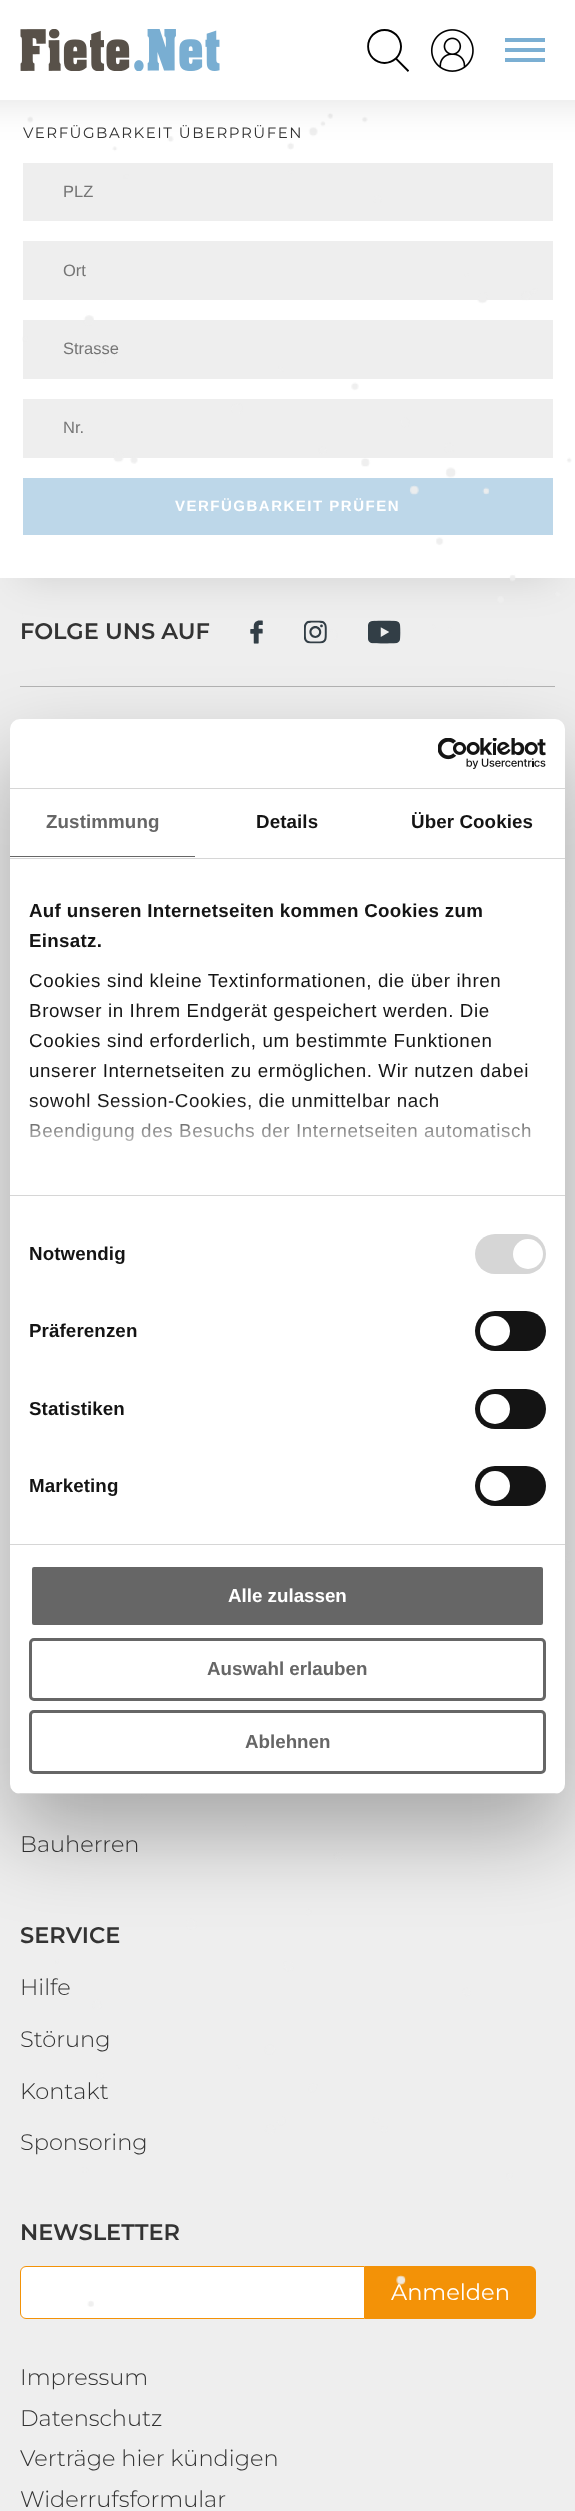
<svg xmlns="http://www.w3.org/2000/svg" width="575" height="2511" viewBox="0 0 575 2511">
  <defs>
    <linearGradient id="g1" gradientUnits="userSpaceOnUse" x1="279" y1="1195" x2="279" y2="1101"><stop offset="0" stop-color="#fff"/><stop offset="0.5" stop-color="#fff" stop-opacity="0.8"/><stop offset="1" stop-color="#fff" stop-opacity="0"/></linearGradient>
    <clipPath id="clip1"><rect x="10" y="719" width="555" height="1075" rx="10"/></clipPath>
  </defs>
  <rect width="100%" height="100%" fill="#eee"/>
  <image x="250" y="620" width="13" height="24" href="img/5.png"/>
  <image x="304" y="620" width="23" height="24" href="img/6.png"/>
  <image x="368" y="620" width="33" height="24" href="img/7.png"/>
  <path d="M20 140h535v438H20z" fill="#0000001f" filter="blur(20px)"/>
  <path d="M0 100h575v478H0z" fill="#fff"/>
  <path d="M23 163h530v58H23z" fill="#eee"/>
  <path d="M23 241h530v59H23z" fill="#eee"/>
  <path d="M23 320h530v59H23z" fill="#eee"/>
  <path d="M23 399h530v59H23z" fill="#eee"/>
  <path d="M23 478h530v57H23z" fill="#bdd7e9"/>
  <path d="M20 686h535v1H20z" fill="#b3b3b3"/>
  <path d="M26 2266.5H364.5V2318.5H26C23 2318.5 20.5 2316 20.5 2313V2272C20.5 2269 23 2266.5 26 2266.5Z" fill="#fff" stroke="#f39207"/>
  <path d="M367 2268H530C532 2268 534 2270 534 2272V2313C534 2315 532 2317 530 2317H367Z" fill="#f39207" stroke="#f39207" stroke-width="4"/>
  <text x="23" y="138" font-family="'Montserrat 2'" font-size="15" font-weight="100" letter-spacing="1.5" fill="#333">VERFÜGBARKEIT ÜBERPRÜFEN</text>
  <g font-family="Liberation Sans" font-size="16.5" fill="#757575">
    <text x="63" y="197">PLZ</text>
    <text x="63" y="276">Ort</text>
    <text x="63" y="354">Strasse</text>
    <text x="63" y="433">Nr.</text>
  </g>
  <text x="175" y="511" font-family="Liberation Sans" font-size="15" font-weight="bold" letter-spacing="1.5" fill="#fff">VERFÜGBARKEIT PRÜFEN</text>
  <text x="20" y="639" font-family="Montserrat" font-size="22.5" font-weight="100" fill="#333">FOLGE UNS AUF</text>
  <text x="20" y="1852" font-family="'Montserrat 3'" font-size="22.5" font-weight="100" fill="#333">Bauherren</text>
  <text x="20" y="1943" font-family="Montserrat" font-size="22.5" font-weight="100" fill="#333">SERVICE</text>
  <g font-family="'Montserrat 3'" font-size="22.5" font-weight="100" fill="#333">
    <text x="20" y="1995">Hilfe</text>
    <text x="20" y="2047">Störung</text>
    <text x="20" y="2099">Kontakt</text>
    <text x="20" y="2150">Sponsoring</text>
  </g>
  <text x="20" y="2240" font-family="Montserrat" font-size="22.5" font-weight="100" fill="#333">NEWSLETTER</text>
  <text x="391" y="2300" font-family="'Montserrat 2'" font-size="22.5" font-weight="100" fill="#fff">Anmelden</text>
  <image x="22" y="112" width="550" height="2195" href="img/4.png"/>
  <path d="M-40 -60h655v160H-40z" fill="#0000001f" filter="blur(20px)"/>
  <path d="M0 0h575v100H0z" fill="#fff"/>
  <path d="M505 40H545ZM505 50H545ZM505 60H545Z" fill="none" stroke="#7bafd3" stroke-width="4"/>
  <image x="20" y="29" width="200" height="42" href="img/1.png"/>
  <image x="430" y="29" width="44" height="43" href="img/3.png"/>
  <image x="367" y="29" width="42" height="43" href="img/2.png"/>
  <g font-family="'Montserrat 3'" font-size="22.5" font-weight="100" fill="#333">
    <text x="20" y="2385">Impressum</text>
    <text x="20" y="2426">Datenschutz</text>
    <text x="20" y="2466">Verträge hier kündigen</text>
    <text x="20" y="2507">Widerrufsformular</text>
  </g>
  <rect x="10" y="759" width="555" height="1075" rx="10" fill="#0000004d" filter="blur(42.5px)"/>
  <rect x="10" y="719" width="555" height="1075" rx="10" fill="#fff"/>
  <path d="M10 788h555v1H10z" fill="#d6d6d6"/>
  <image x="438" y="738" width="108" height="31" href="img/8.png"/>
  <path d="M10 858h555v1H10z" fill="#d6d6d6"/>
  <path d="M10 856h185v1H10z" fill="#666"/>
  <text x="46" y="828" font-family="Liberation Sans" font-size="18.75" font-weight="bold" letter-spacing="0.1" fill="#666">Zustimmung</text>
  <g font-family="Liberation Sans" font-size="18.75" font-weight="bold" letter-spacing="0.1" fill="#141414">
    <text x="256" y="828">Details</text>
    <text x="411" y="828">Über Cookies</text>
  </g>
  <path d="M10 1195h555v1H10z" fill="#d6d6d6"/>
  <g font-family="Liberation Sans" font-size="18.75" font-weight="bold" letter-spacing="0.3" fill="#141414">
    <text x="29" y="917">Auf unseren Internetseiten kommen Cookies zum</text>
    <text x="29" y="947">Einsatz.</text>
  </g>
  <g font-family="Liberation Sans" font-size="18.75" letter-spacing="0.62" fill="#141414">
    <text x="29" y="987">Cookies sind kleine Textinformationen, die über ihren</text>
    <text x="29" y="1017">Browser in Ihrem Endgerät gespeichert werden. Die</text>
    <text x="29" y="1047">Cookies sind erforderlich, um bestimmte Funktionen</text>
    <text x="29" y="1077">unserer Internetseiten zu ermöglichen. Wir nutzen dabei</text>
    <text x="29" y="1107">sowohl Session-Cookies, die unmittelbar nach</text>
    <text x="29" y="1137">Beendigung des Besuchs der Internetseiten automatisch</text>
  </g>
  <path d="M29 1102h502v39H29z" fill="url(#g1)"/>
  <path d="M10 1544h555v1H10z" fill="#d6d6d6"/>
  <text x="29" y="1260" font-family="Liberation Sans" font-size="18.75" font-weight="bold" letter-spacing="0.1" fill="#141414">Notwendig</text>
  <rect x="475" y="1234" width="71" height="40" rx="20" fill="#d6d6d6"/>
  <circle cx="528" cy="1254" r="15" fill="#fff"/>
  <text x="29" y="1337" font-family="Liberation Sans" font-size="18.75" font-weight="bold" letter-spacing="0.1" fill="#141414">Präferenzen</text>
  <rect x="475" y="1311" width="71" height="40" rx="20" fill="#141414"/>
  <circle cx="495" cy="1331" r="15" fill="#fff"/>
  <text x="29" y="1415" font-family="Liberation Sans" font-size="18.75" font-weight="bold" letter-spacing="0.1" fill="#141414">Statistiken</text>
  <rect x="475" y="1389" width="71" height="40" rx="20" fill="#141414"/>
  <circle cx="495" cy="1409" r="15" fill="#fff"/>
  <text x="29" y="1492" font-family="Liberation Sans" font-size="18.75" font-weight="bold" letter-spacing="0.1" fill="#141414">Marketing</text>
  <rect x="475" y="1466" width="71" height="40" rx="20" fill="#141414"/>
  <circle cx="495" cy="1486" r="15" fill="#fff"/>
  <g clip-path="url(#clip1)">
    <path d="M10 1793h555v1H10z" fill="#d6d6d6"/>
  </g>
  <rect x="30.5" y="1565.5" width="514" height="61" rx="3.5" fill="#666" stroke="#fff" stroke-width="3"/>
  <text x="228" y="1602" font-family="Liberation Sans" font-size="18.75" font-weight="bold" fill="#fff">Alle zulassen</text>
  <rect x="30.5" y="1639.5" width="514" height="60" rx="3.5" fill="none" stroke="#666" stroke-width="3"/>
  <text x="207" y="1675" font-family="Liberation Sans" font-size="18.75" font-weight="bold" fill="#666">Auswahl erlauben</text>
  <rect x="30.5" y="1711.5" width="514" height="61" rx="3.5" fill="none" stroke="#666" stroke-width="3"/>
  <text x="245" y="1748" font-family="Liberation Sans" font-size="18.75" font-weight="bold" fill="#666">Ablehnen</text>
</svg>
